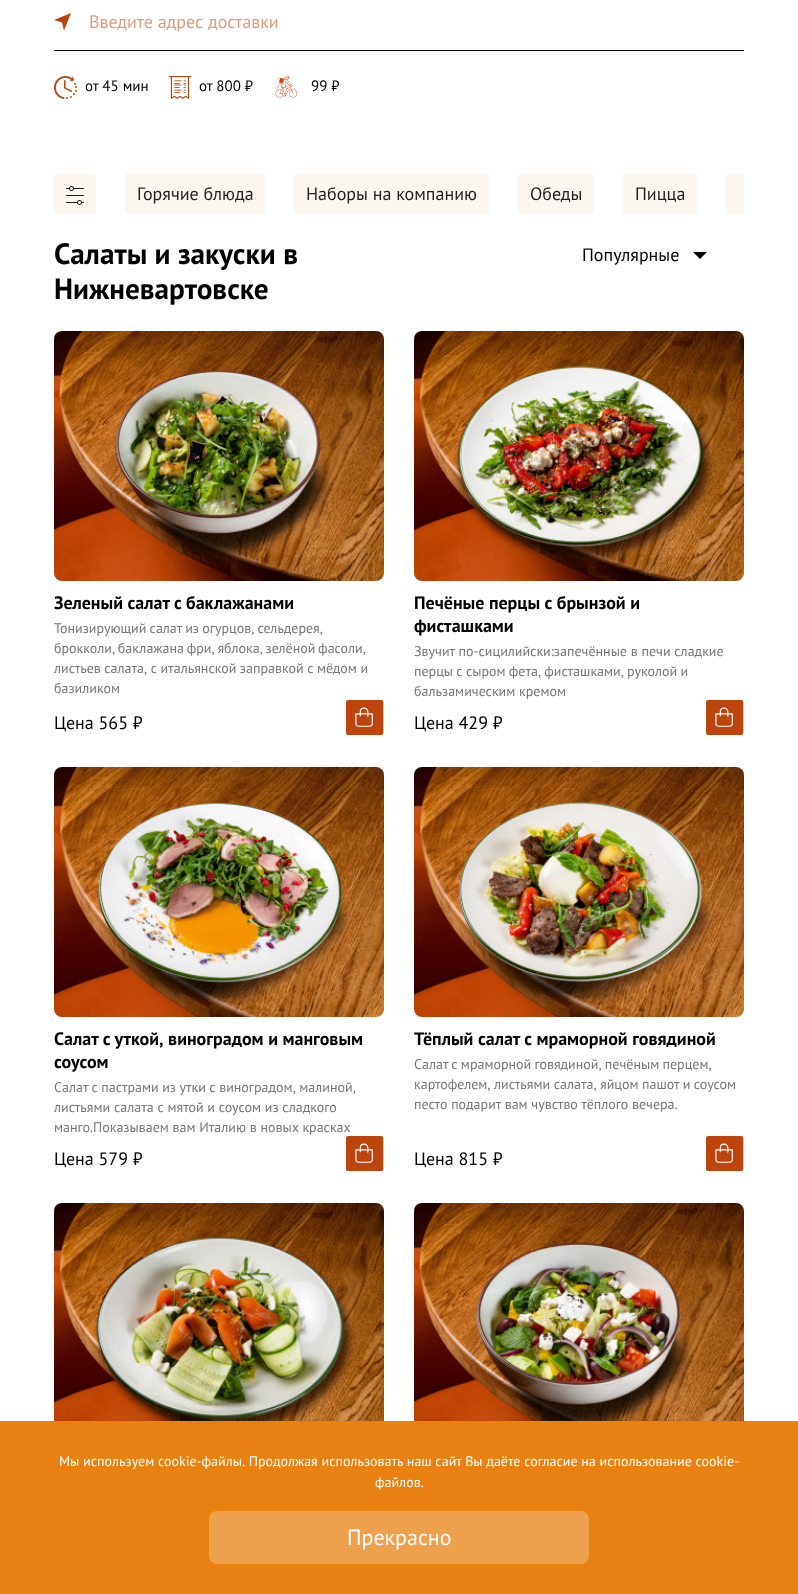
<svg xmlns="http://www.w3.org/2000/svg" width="798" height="1594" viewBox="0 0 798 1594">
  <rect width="100%" height="100%" fill="#fff"/>
  <path d="M71 13L64 30.5L62 22.5L54 20Z" fill="#bc450d"/>
  <path d="M54 50h690v1H54z" fill="#000"/>
  <image x="54" y="76" width="23" height="23" href="img/1.png"/>
  <image x="169" y="76" width="22" height="23" href="img/2.png"/>
  <image x="275" y="75" width="23" height="23" href="img/3.png"/>
  <rect x="54" y="174" width="42" height="40" rx="2" fill="#fbf7f0"/>
  <image x="66" y="186" width="18" height="19" href="img/4.png"/>
  <rect x="125" y="174" width="140" height="40" rx="2" fill="#fbf7f0"/>
  <rect x="294" y="174" width="195" height="40" rx="2" fill="#fbf7f0"/>
  <rect x="518" y="174" width="76" height="40" rx="2" fill="#fbf7f0"/>
  <rect x="623" y="174" width="74" height="40" rx="2" fill="#fbf7f0"/>
  <path d="M728 174H744V214H728C727 214 726 213 726 212V176C726 175 727 174 728 174Z" fill="#fbf7f0"/>
  <path d="M693 252H707L700 259Z" fill="#000"/>
  <image x="54" y="331" width="330" height="250" href="img/5.png"/>
  <image x="346" y="700" width="38" height="35" href="img/6.png"/>
  <image x="414" y="331" width="330" height="250" href="img/7.png"/>
  <image x="706" y="700" width="38" height="35" href="img/6.png"/>
  <image x="54" y="767" width="330" height="250" href="img/8.png"/>
  <image x="346" y="1136" width="38" height="35" href="img/6.png"/>
  <image x="414" y="767" width="330" height="250" href="img/9.png"/>
  <image x="706" y="1136" width="38" height="35" href="img/6.png"/>
  <image x="54" y="1203" width="330" height="218" href="img/10.png"/>
  <image x="414" y="1203" width="330" height="218" href="img/11.png"/>
  <path d="M0 1421h798v173H0z" fill="#e98012"/>
  <rect x="209" y="1511" width="380" height="53" rx="8" fill="#efa04d"/>
  <text x="89" y="28" font-family="PT Sans" font-size="18" fill="#dc9e81">Введите адрес доставки</text>
  <g font-family="PT Sans" font-size="15" fill="#000">
    <text x="85" y="91">от 45 мин</text>
    <text x="199" y="91">от 800 ₽</text>
    <text x="311" y="91">99 ₽</text>
  </g>
  <g font-family="PT Sans" font-size="18" fill="#1f1f1f">
    <text x="137" y="200">Горячие блюда</text>
    <text x="306" y="200">Наборы на компанию</text>
    <text x="530" y="200">Обеды</text>
    <text x="635" y="200">Пицца</text>
  </g>
  <g font-family="PT Sans" font-size="29.25" font-weight="bold" fill="#000">
    <text x="54" y="264">Салаты и закуски в</text>
    <text x="54" y="299">Нижневартовске</text>
  </g>
  <text x="582" y="261" font-family="PT Sans" font-size="18" fill="#000">Популярные</text>
  <text x="54" y="609" font-family="PT Sans" font-size="18" font-weight="bold" fill="#000">Зеленый салат с баклажанами</text>
  <g font-family="PT Sans" font-size="14" fill="#767676">
    <text x="54" y="633" word-spacing="-0.5">Тонизирующий салат из огурцов, сельдерея,</text>
    <text x="54" y="653" word-spacing="-1">брокколи, баклажана фри, яблока, зелёной фасоли,</text>
    <text x="54" y="673" word-spacing="-0.25">листьев салата, с итальянской заправкой с мёдом и</text>
    <text x="54" y="693">базиликом</text>
  </g>
  <text x="54" y="729" font-family="PT Sans" font-size="18" fill="#000">Цена 565 ₽</text>
  <g font-family="PT Sans" font-size="18" font-weight="bold" fill="#000">
    <text x="414" y="609">Печёные перцы с брынзой и</text>
    <text x="414" y="632">фисташками</text>
  </g>
  <g font-family="PT Sans" font-size="14" fill="#767676">
    <text x="414" y="656">Звучит по-сицилийски:запечённые в печи сладкие</text>
    <text x="414" y="676" word-spacing="-0.5">перцы с сыром фета, фисташками, руколой и</text>
    <text x="414" y="696">бальзамическим кремом</text>
  </g>
  <text x="414" y="729" font-family="PT Sans" font-size="18" fill="#000">Цена 429 ₽</text>
  <g font-family="PT Sans" font-size="18" font-weight="bold" fill="#000">
    <text x="54" y="1045">Салат с уткой, виноградом и манговым</text>
    <text x="54" y="1068">соусом</text>
  </g>
  <g font-family="PT Sans" font-size="14" fill="#767676">
    <text x="54" y="1092" word-spacing="-0.25">Салат с пастрами из утки с виноградом, малиной,</text>
    <text x="54" y="1112">листьями салата с мятой и соусом из сладкого</text>
    <text x="54" y="1132">манго.Показываем вам Италию в новых красках</text>
  </g>
  <text x="54" y="1165" font-family="PT Sans" font-size="18" fill="#000">Цена 579 ₽</text>
  <text x="414" y="1045" font-family="PT Sans" font-size="18" font-weight="bold" fill="#000">Тёплый салат с мраморной говядиной</text>
  <g font-family="PT Sans" font-size="14" fill="#767676">
    <text x="414" y="1069" word-spacing="-0.5">Салат с мраморной говядиной, печёным перцем,</text>
    <text x="414" y="1089" word-spacing="-0.25">картофелем, листьями салата, яйцом пашот и соусом</text>
    <text x="414" y="1109">песто подарит вам чувство тёплого вечера.</text>
  </g>
  <text x="414" y="1165" font-family="PT Sans" font-size="18" fill="#000">Цена 815 ₽</text>
  <g font-family="PT Sans" font-size="14" fill="#fff">
    <text x="59" y="1466">Мы используем cookie-файлы. Продолжая использовать наш сайт Вы даёте согласие на использование cookie-</text>
    <text x="375" y="1487">файлов.</text>
  </g>
  <text x="347" y="1545" font-family="PT Sans" font-size="22" fill="#fff">Прекрасно</text>
</svg>
